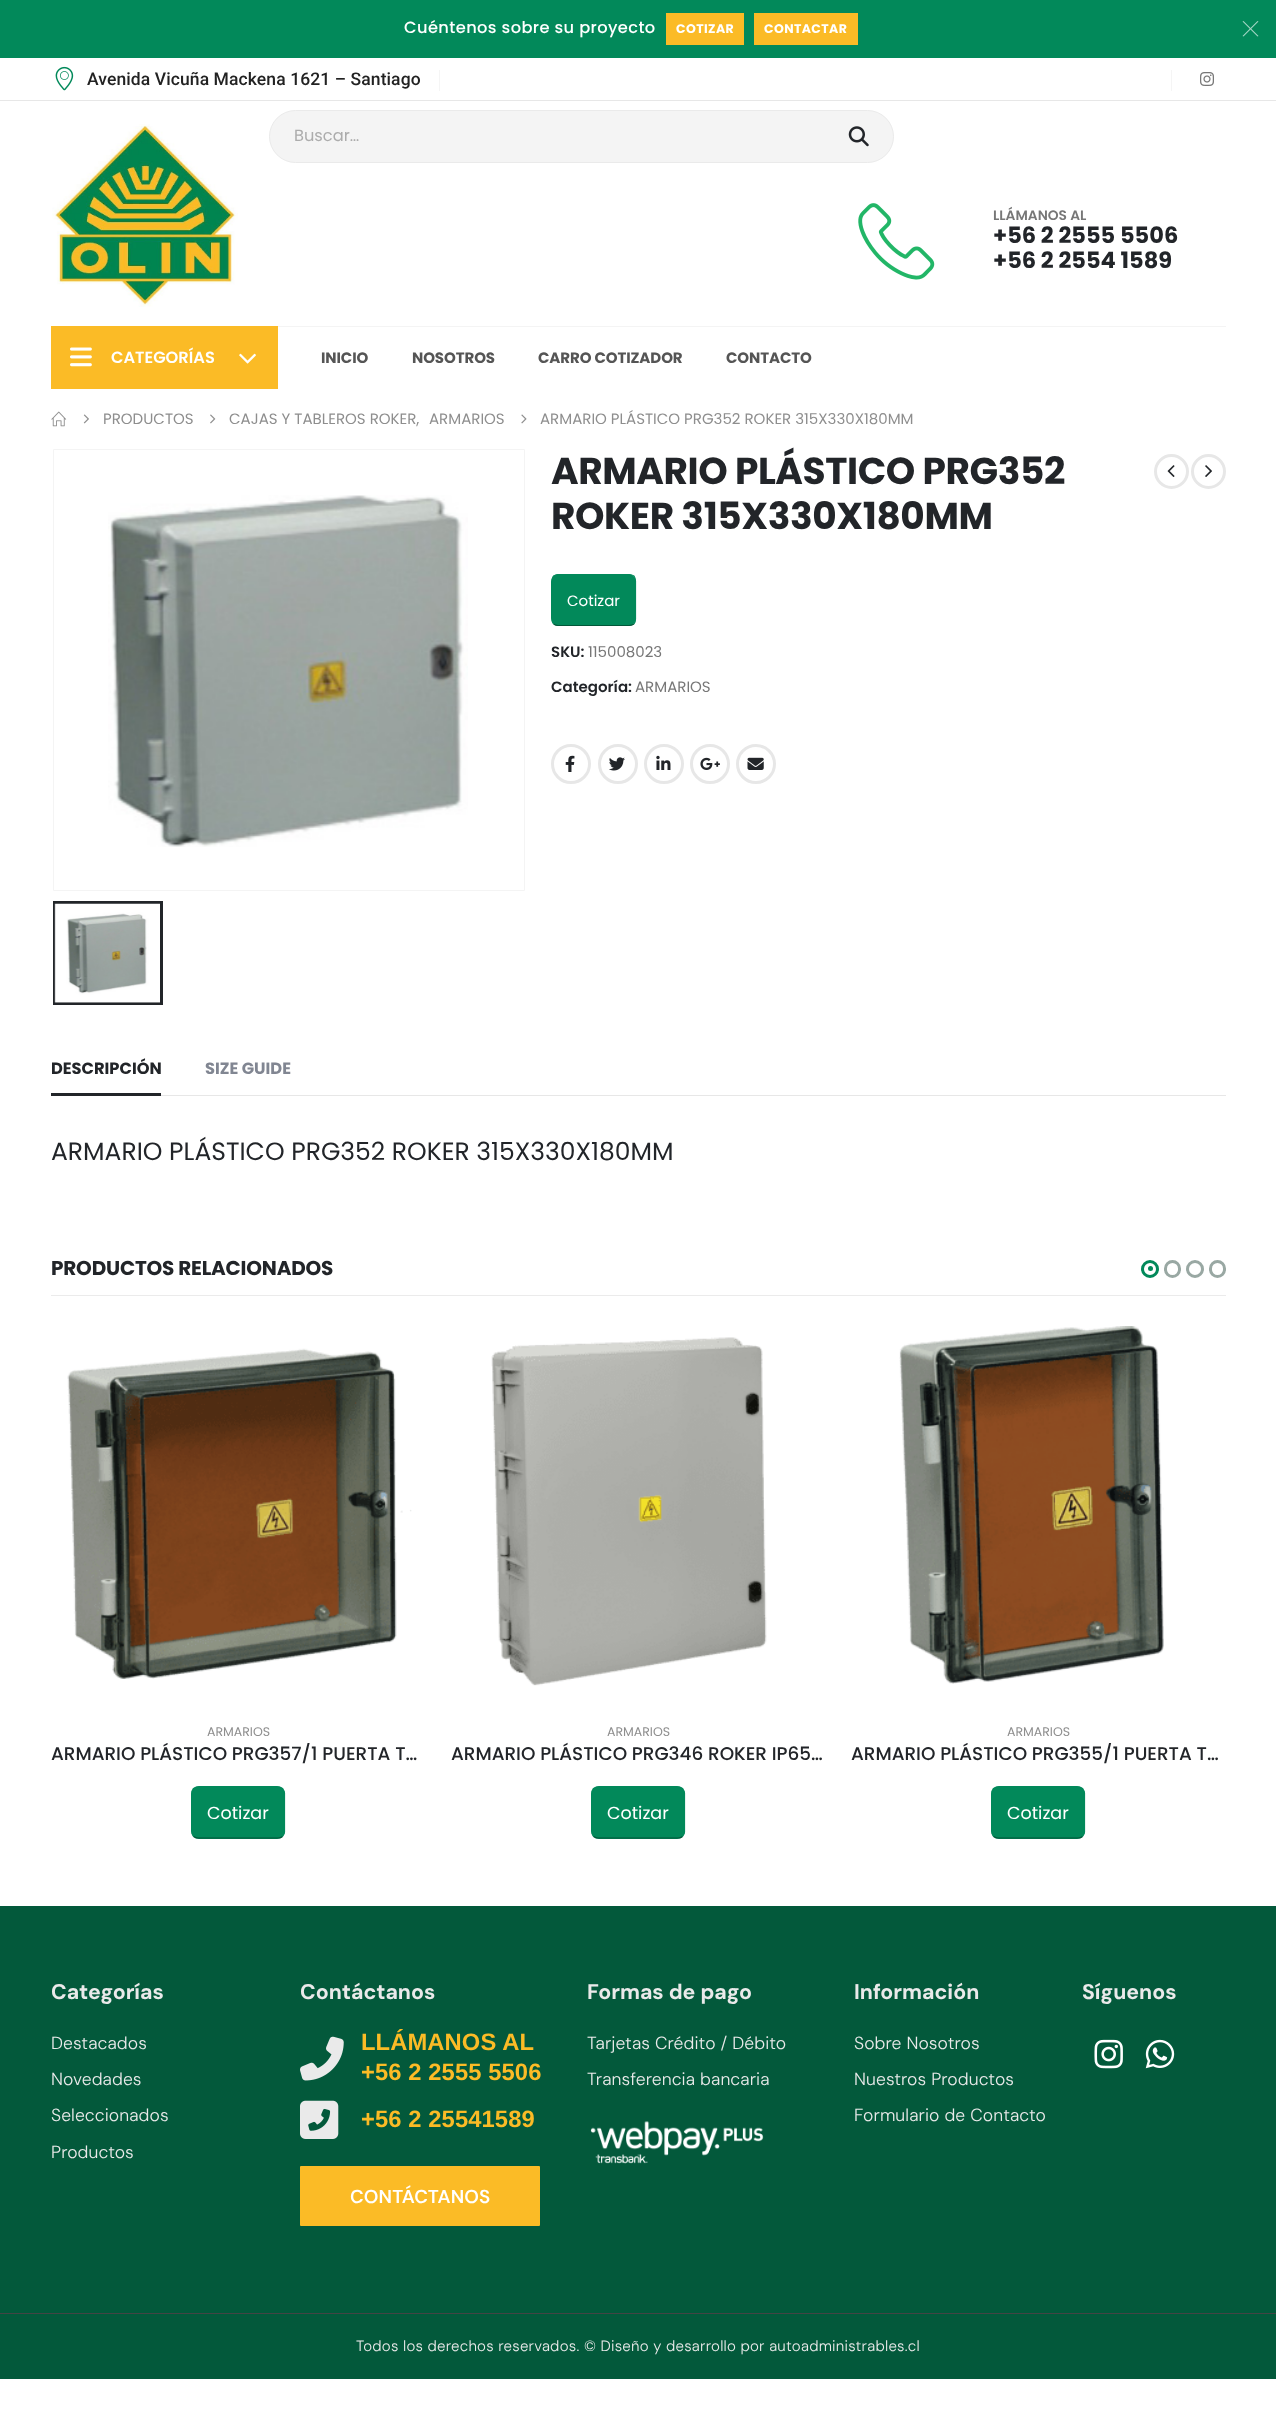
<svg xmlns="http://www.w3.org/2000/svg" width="1276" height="2418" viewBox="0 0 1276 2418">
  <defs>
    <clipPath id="clip1"><path d="M51 1743h375v25H51z"/></clipPath>
    <clipPath id="clip2"><path d="M851 1743h375v25H851z"/></clipPath>
  </defs>
  <rect width="100%" height="100%" fill="#fff"/>
  <path d="M0 0h1276v58H0z" fill="#02895a"/>
  <path d="M666 13h78v32H666z" fill="#fbbb26"/>
  <path d="M754 13h104v32H754z" fill="#fbbb26"/>
  <path d="M1243.5 21L1258.5 36L1257.5 36.5L1242.5 21.5Z" fill="#a6d6c5"/>
  <path d="M1257.5 21L1258.5 21.5L1243.5 36.5L1242.5 36Z" fill="#a6d6c5"/>
  <path d="M0 100h1276v1H0z" fill="#e7e7e7"/>
  <image x="55" y="66" width="19" height="25" href="img/1.png"/>
  <path d="M439 70h1v21H439z" fill="#f5f5f5"/>
  <path d="M1171 70h1v21H1171z" fill="#f5f5f5"/>
  <image x="1200" y="72" width="14" height="14" href="img/2.png"/>
  <image x="52" y="124" width="186" height="183" href="img/3.png"/>
  <rect x="269.5" y="110.5" width="624" height="52" rx="26" fill="#f4f4f4" stroke="#eaeaea"/>
  <image x="848" y="126" width="21" height="21" href="img/4.png"/>
  <image x="858" y="203" width="77" height="77" href="img/5.png"/>
  <path d="M278 326h948v1H278z" fill="#f4f4f4"/>
  <path d="M51 326h227v63H51z" fill="#fbbb26"/>
  <image x="70" y="347" width="22" height="20" href="img/6.png"/>
  <image x="239" y="353" width="17" height="11" href="img/7.png"/>
  <image x="51" y="411" width="16" height="16" href="img/8.png"/>
  <image x="83" y="414" width="6" height="10" href="img/9.png"/>
  <image x="210" y="414" width="6" height="10" href="img/10.png"/>
  <image x="521" y="414" width="6" height="10" href="img/11.png"/>
  <path d="M53.5 449.5h471v441H53.5z" fill="none" stroke="#f4f4f4"/>
  <image x="108" y="495" width="360" height="352" href="img/12.png"/>
  <path d="M54.5 902.5h107v101H54.5z" fill="none" stroke="#222529" stroke-width="3"/>
  <image x="54" y="903" width="106" height="100" href="img/13.png"/>
  <circle cx="1171.5" cy="471.5" r="16" fill="none" stroke="#e7e7e7" stroke-width="3"/>
  <image x="1167" y="465" width="8" height="12" href="img/14.png"/>
  <circle cx="1208.5" cy="471.5" r="16" fill="none" stroke="#e7e7e7" stroke-width="3"/>
  <image x="1205" y="465" width="7" height="12" href="img/15.png"/>
  <rect x="551" y="574" width="85" height="52" rx="8" fill="#02895a"/>
  <path d="M634 624C632.5 625 631 625.5 629 625.5H558C556.5 625.5 555 625 553.5 624" fill="none" stroke="#025739" stroke-width="1.2"/>
  <path d="M553.5 624C552.5 622.5 552 621 552 619V581C552 579 552.5 577.5 553.5 576C555 575 556.5 574.5 558 574.5H629C631 574.5 632.5 575 634 576C635 577.5 635.5 579 635.5 581V619C635.5 621 635 622.5 634 624" fill="none" stroke="#02895a" stroke-width="1.2"/>
  <circle cx="571" cy="764" r="18.5" fill="none" stroke="#e7e7e7" stroke-width="3"/>
  <image x="565" y="755" width="10" height="17" href="img/16.png"/>
  <circle cx="618" cy="764" r="18.5" fill="none" stroke="#e7e7e7" stroke-width="3"/>
  <image x="609" y="757" width="16" height="14" href="img/17.png"/>
  <circle cx="664" cy="764" r="18.5" fill="none" stroke="#e7e7e7" stroke-width="3"/>
  <image x="656" y="755" width="15" height="15" href="img/18.png"/>
  <circle cx="710" cy="764" r="18.5" fill="none" stroke="#e7e7e7" stroke-width="3"/>
  <image x="700" y="757" width="20" height="13" href="img/19.png"/>
  <circle cx="756" cy="764" r="18.5" fill="none" stroke="#e7e7e7" stroke-width="3"/>
  <image x="747" y="757" width="17" height="13" href="img/20.png"/>
  <path d="M51 1093h110v3H51z" fill="#222529"/>
  <path d="M161 1095h1065v1H161z" fill="#e7e7e7"/>
  <path d="M51 1295h1175v1H51z" fill="#ebebeb"/>
  <circle cx="1150" cy="1269" r="7.5" fill="none" stroke="#02895a" stroke-width="3"/>
  <circle cx="1150.5" cy="1268.5" r="2.5" fill="#02895a"/>
  <rect x="1165.5" y="1261.5" width="14" height="15" rx="7" fill="none" stroke="#99a8a3" stroke-width="3"/>
  <circle cx="1195" cy="1269" r="7.5" fill="none" stroke="#99a8a3" stroke-width="3"/>
  <rect x="1210.5" y="1261.5" width="14" height="15" rx="7" fill="none" stroke="#99a8a3" stroke-width="3"/>
  <image x="67" y="1348" width="345" height="331" href="img/21.png"/>
  <rect x="191" y="1786" width="94" height="53" rx="8" fill="#02895a"/>
  <path d="M282.5 1836.5C281.5 1837.5 279.5 1838 278 1838H198C196.5 1838 195 1837.5 193.5 1836.5" fill="none" stroke="#025739" stroke-width="1.2"/>
  <path d="M193.5 1836.5C192.5 1835 192 1833.5 192 1832V1793C192 1791.5 192.5 1790 193.5 1788.5C195 1787.5 196.5 1787 198 1787H278C279.5 1787 281.5 1787.5 282.5 1788.5C283.5 1790 284.5 1791.5 284.5 1793V1832C284.5 1833.5 283.5 1835 282.5 1836.5" fill="none" stroke="#02895a" stroke-width="1.2"/>
  <image x="491" y="1337" width="276" height="349" href="img/22.png"/>
  <rect x="591" y="1786" width="94" height="53" rx="8" fill="#02895a"/>
  <path d="M682.5 1836.5C681.5 1837.5 679.5 1838 678 1838H598C596.5 1838 595 1837.5 593.5 1836.5" fill="none" stroke="#025739" stroke-width="1.2"/>
  <path d="M593.5 1836.5C592.5 1835 592 1833.5 592 1832V1793C592 1791.5 592.5 1790 593.5 1788.5C595 1787.5 596.5 1787 598 1787H678C679.5 1787 681.5 1787.5 682.5 1788.5C683.5 1790 684.5 1791.5 684.5 1793V1832C684.5 1833.5 683.5 1835 682.5 1836.5" fill="none" stroke="#02895a" stroke-width="1.2"/>
  <image x="899" y="1326" width="265" height="358" href="img/23.png"/>
  <rect x="991" y="1786" width="94" height="53" rx="8" fill="#02895a"/>
  <path d="M1082.5 1836.5C1081.5 1837.5 1079.5 1838 1078 1838H998C996.5 1838 995 1837.5 993.5 1836.5" fill="none" stroke="#025739" stroke-width="1.2"/>
  <path d="M993.5 1836.5C992.5 1835 992 1833.5 992 1832V1793C992 1791.5 992.5 1790 993.5 1788.5C995 1787.5 996.5 1787 998 1787H1078C1079.5 1787 1081.5 1787.5 1082.5 1788.5C1083.5 1790 1084.5 1791.5 1084.5 1793V1832C1084.5 1833.5 1083.5 1835 1082.5 1836.5" fill="none" stroke="#02895a" stroke-width="1.2"/>
  <path d="M0 1906h1276v407H0z" fill="#03593b"/>
  <image x="300" y="2036" width="44" height="45" href="img/24.png"/>
  <image x="300" y="2100" width="39" height="39" href="img/25.png"/>
  <rect x="300" y="2166" width="240" height="60" rx="1" fill="#fbbb26"/>
  <image x="590" y="2121" width="174" height="43" href="img/26.png"/>
  <image x="1094" y="2039" width="29" height="30" href="img/27.png"/>
  <image x="1145" y="2039" width="30" height="30" href="img/28.png"/>
  <path d="M0 2314h1276v65H0z" fill="#03593b"/>
  <path d="M0 2313h1276v1H0z" fill="#444"/>
  <text x="404" y="33" font-family="Poppins" font-size="16.25" font-weight="500" letter-spacing="0.4" fill="#fff">Cuéntenos sobre su proyecto</text>
  <g font-family="Poppins" font-size="12.5" font-weight="bold" letter-spacing="0.4" fill="#fff">
    <text x="676" y="33">COTIZAR</text>
    <text x="764" y="33">CONTACTAR</text>
  </g>
  <text x="87" y="85" font-family="Roboto" font-size="17.5" font-weight="500" letter-spacing="0.1" fill="#222">Avenida Vicuña Mackena 1621 – Santiago</text>
  <text x="294" y="141" font-family="Poppins" font-size="16.25" fill="#acacac">Buscar…</text>
  <text x="993" y="220" font-family="Poppins" font-size="13.75" font-weight="600" fill="#777">LLÁMANOS AL</text>
  <g font-family="Poppins" font-size="22.5" font-weight="bold" fill="#222529">
    <text x="993" y="243">+56 2 2555 5506</text>
    <text x="993" y="268">+56 2 2554 1589</text>
  </g>
  <text x="111" y="363" font-family="Poppins" font-size="16.25" font-weight="600" fill="#fff">CATEGORÍAS</text>
  <g font-family="Poppins" font-size="15" font-weight="bold" letter-spacing="-0.1" fill="#555">
    <text x="321" y="363">INICIO</text>
    <text x="412" y="363">NOSOTROS</text>
    <text x="538" y="363">CARRO COTIZADOR</text>
    <text x="726" y="363">CONTACTO</text>
  </g>
  <g font-family="Poppins" font-size="15" fill="#8e8e8e">
    <text x="103" y="424">PRODUCTOS</text>
    <text x="229" y="424">CAJAS Y TABLEROS ROKER,</text>
    <text x="429" y="424">ARMARIOS</text>
    <text x="540" y="424">ARMARIO PLÁSTICO PRG352 ROKER 315X330X180MM</text>
  </g>
  <g font-family="Poppins" font-size="37.5" font-weight="bold" letter-spacing="-0.4" fill="#222529">
    <text x="551" y="484">ARMARIO PLÁSTICO PRG352</text>
    <text x="551" y="529">ROKER 315X330X180MM</text>
  </g>
  <text x="567" y="606" font-family="Poppins" font-size="15" fill="#fff">Cotizar</text>
  <text x="551" y="657" font-family="Poppins" font-size="15" font-weight="600" fill="#222529">SKU:</text>
  <text x="588" y="657" font-family="Poppins" font-size="15" fill="#777">115008023</text>
  <text x="551" y="692" font-family="Poppins" font-size="15" font-weight="600" fill="#222529">Categoría:</text>
  <text x="635" y="692" font-family="Poppins" font-size="15" fill="#777">ARMARIOS</text>
  <text x="51" y="1074" font-family="Poppins" font-size="16.25" font-weight="bold" fill="#222529">DESCRIPCIÓN</text>
  <text x="205" y="1074" font-family="Poppins" font-size="16.25" font-weight="bold" fill="#818692">SIZE GUIDE</text>
  <text x="51" y="1160" font-family="Poppins" font-size="25" fill="#222529">ARMARIO PLÁSTICO PRG352 ROKER 315X330X180MM</text>
  <text x="51" y="1275" font-family="Poppins" font-size="20" font-weight="bold" letter-spacing="-0.2" fill="#222529">PRODUCTOS RELACIONADOS</text>
  <text x="207" y="1736" font-family="Poppins" font-size="12.5" fill="#8e8e8e">ARMARIOS</text>
  <g clip-path="url(#clip1)">
    <text x="51" y="1760" font-family="Poppins" font-size="18.4" font-weight="500" fill="#222529">ARMARIO PLÁSTICO PRG357/1 PUERTA T…</text>
  </g>
  <text x="207" y="1819" font-family="Poppins" font-size="17.5" fill="#fff">Cotizar</text>
  <text x="607" y="1736" font-family="Poppins" font-size="12.5" fill="#8e8e8e">ARMARIOS</text>
  <text x="451" y="1760" font-family="Poppins" font-size="18.4" font-weight="500" fill="#222529">ARMARIO PLÁSTICO PRG346 ROKER IP65…</text>
  <text x="607" y="1819" font-family="Poppins" font-size="17.5" fill="#fff">Cotizar</text>
  <text x="1007" y="1736" font-family="Poppins" font-size="12.5" fill="#8e8e8e">ARMARIOS</text>
  <g clip-path="url(#clip2)">
    <text x="851" y="1760" font-family="Poppins" font-size="18.4" font-weight="500" fill="#222529">ARMARIO PLÁSTICO PRG355/1 PUERTA T…</text>
  </g>
  <text x="1007" y="1819" font-family="Poppins" font-size="17.5" fill="#fff">Cotizar</text>
  <text x="51" y="1999" font-family="DM Sans" font-size="21.25" font-weight="bold" fill="#eaeaea">Categorías</text>
  <g font-family="DM Sans" font-size="17.5" font-weight="300" letter-spacing="0.1" fill="#eaeaea">
    <text x="51" y="2049">Destacados</text>
    <text x="51" y="2085">Novedades</text>
    <text x="51" y="2121">Seleccionados</text>
    <text x="51" y="2158">Productos</text>
  </g>
  <text x="300" y="1999" font-family="DM Sans" font-size="21.25" font-weight="bold" fill="#eaeaea">Contáctanos</text>
  <g font-family="Liberation Sans" font-size="23.75" font-weight="bold" letter-spacing="0.1" fill="#fbbb26">
    <text x="361" y="2050">LLÁMANOS AL</text>
    <text x="361" y="2080">+56 2 2555 5506</text>
    <text x="361" y="2127">+56 2 25541589</text>
  </g>
  <text x="350" y="2203" font-family="DM Sans" font-size="18.75" font-weight="600" letter-spacing="0.1" fill="#fff">CONTÁCTANOS</text>
  <text x="587" y="1999" font-family="DM Sans" font-size="21.25" font-weight="bold" fill="#eaeaea">Formas de pago</text>
  <g font-family="DM Sans" font-size="17.5" font-weight="300" letter-spacing="0.1" fill="#eaeaea">
    <text x="587" y="2049">Tarjetas Crédito / Débito</text>
    <text x="587" y="2085">Transferencia bancaria</text>
  </g>
  <text x="854" y="1999" font-family="DM Sans" font-size="21.25" font-weight="bold" fill="#eaeaea">Información</text>
  <g font-family="DM Sans" font-size="17.5" font-weight="300" letter-spacing="0.1" fill="#eaeaea">
    <text x="854" y="2049">Sobre Nosotros</text>
    <text x="854" y="2085">Nuestros Productos</text>
    <text x="854" y="2121">Formulario de Contacto</text>
  </g>
  <text x="1082" y="1999" font-family="DM Sans" font-size="21.25" font-weight="bold" fill="#eaeaea">Síguenos</text>
  <text x="356" y="2351" font-family="DM Sans" font-size="15" font-weight="300" letter-spacing="0.25" fill="#eaeaea">Todos los derechos reservados. © Diseño y desarrollo por autoadministrables.cl</text>
</svg>
